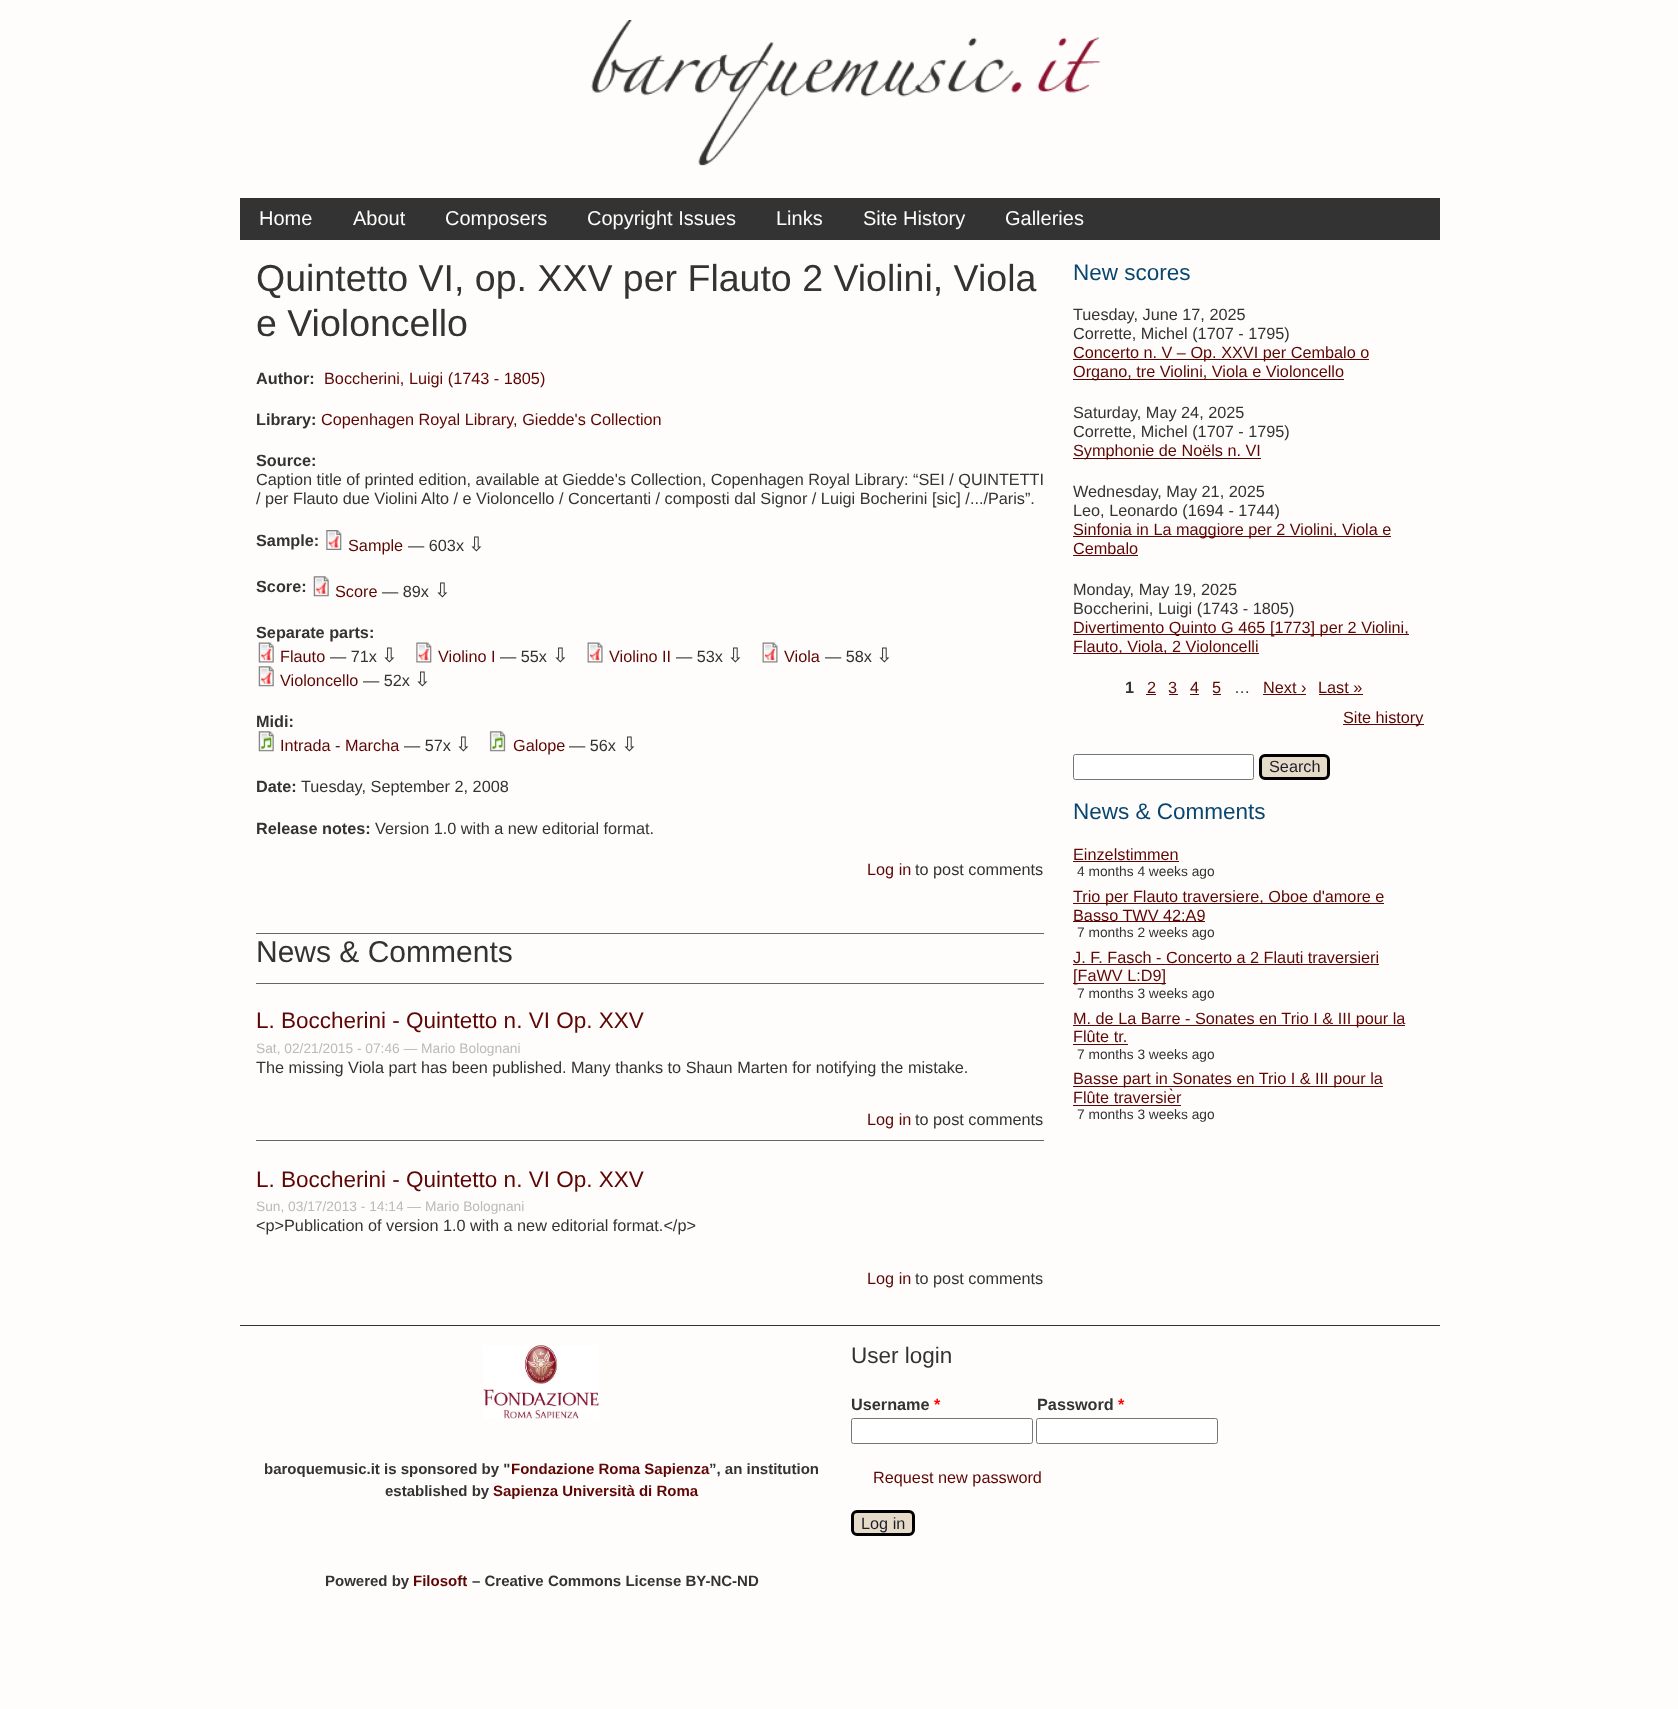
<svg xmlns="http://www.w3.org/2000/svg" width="1678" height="1709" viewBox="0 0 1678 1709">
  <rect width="100%" height="100%" fill="#fffdfb"/>
  <image x="591" y="20" width="510" height="146" href="img/1.png"/>
  <path d="M240 198h1200v42H240z" fill="#333"/>
  <image x="326" y="530" width="16" height="20" href="img/2.png"/>
  <image x="313" y="576" width="16" height="21" href="img/3.png"/>
  <image x="258" y="642" width="16" height="21" href="img/4.png"/>
  <image x="416" y="642" width="16" height="21" href="img/5.png"/>
  <image x="587" y="642" width="16" height="21" href="img/6.png"/>
  <image x="762" y="642" width="16" height="21" href="img/7.png"/>
  <image x="258" y="666" width="16" height="21" href="img/8.png"/>
  <image x="258" y="731" width="16" height="21" href="img/9.png"/>
  <image x="489" y="731" width="17" height="21" href="img/10.png"/>
  <path d="M256 933h788v1H256z" fill="#666"/>
  <path d="M256 983h788v1H256z" fill="#666"/>
  <path d="M256 1140h788v1H256z" fill="#666"/>
  <path d="M1073 359h296v1H1073z" fill="#5d0604"/>
  <path d="M1073 379h271v1H1073z" fill="#5d0604"/>
  <path d="M1073 458h188v1H1073z" fill="#5d0604"/>
  <path d="M1073 536h318v1H1073z" fill="#5d0604"/>
  <path d="M1073 555h65v1H1073z" fill="#5d0604"/>
  <path d="M1073 634h336v1H1073z" fill="#5d0604"/>
  <path d="M1073 653h186v1H1073z" fill="#5d0604"/>
  <path d="M1146 694h10v1H1146z" fill="#5d0604"/>
  <path d="M1169 694h9v1H1169z" fill="#5d0604"/>
  <path d="M1190 694h9v1H1190z" fill="#5d0604"/>
  <path d="M1213 694h8v1H1213z" fill="#5d0604"/>
  <path d="M1263 694h43v1H1263z" fill="#5d0604"/>
  <path d="M1319 694h44v1H1319z" fill="#5d0604"/>
  <path d="M1343 724h81v1H1343z" fill="#5d0604"/>
  <rect x="1073.5" y="754.5" width="180" height="25" rx="2" fill="#fff" stroke="#767676"/>
  <rect x="1260.5" y="755.5" width="68" height="23" rx="4.5" fill="#e6dbc8" stroke="#000" stroke-width="3"/>
  <path d="M1073 861h106v1H1073z" fill="#5d0604"/>
  <path d="M1073 903h311v1H1073z" fill="#5d0604"/>
  <path d="M1073 921h132v1H1073z" fill="#5d0604"/>
  <path d="M1073 964h306v1H1073z" fill="#5d0604"/>
  <path d="M1073 983h93v1H1073z" fill="#5d0604"/>
  <path d="M1073 1025h332v1H1073z" fill="#5d0604"/>
  <path d="M1073 1044h55v1H1073z" fill="#5d0604"/>
  <path d="M1073 1086h310v1H1073z" fill="#5d0604"/>
  <path d="M1073 1105h108v1H1073z" fill="#5d0604"/>
  <path d="M240 1325h1200v1H240z" fill="#333"/>
  <image x="483" y="1345" width="116" height="74" href="img/11.png"/>
  <rect x="851.5" y="1418.5" width="181" height="25" rx="2" fill="#fff" stroke="#767676"/>
  <rect x="1036.5" y="1418.5" width="181" height="25" rx="2" fill="#fff" stroke="#767676"/>
  <rect x="852.5" y="1511.5" width="61" height="23" rx="4.5" fill="#e6dbc8" stroke="#000" stroke-width="3"/>
  <g font-family="Liberation Sans" font-size="20" fill="#fffdfb">
    <text x="259" y="225">Home</text>
    <text x="353" y="225">About</text>
    <text x="445" y="225">Composers</text>
    <text x="587" y="225">Copyright Issues</text>
    <text x="776" y="225">Links</text>
    <text x="863" y="225">Site History</text>
    <text x="1005" y="225">Galleries</text>
  </g>
  <g font-family="Liberation Sans" font-size="37.5" fill="#333">
    <text x="256" y="291">Quintetto VI, op. XXV per Flauto 2 Violini, Viola</text>
    <text x="256" y="336">e Violoncello</text>
  </g>
  <text x="256" y="384" font-family="Liberation Sans" font-size="16.25" font-weight="bold" fill="#333">Author:</text>
  <text x="324" y="384" font-family="Liberation Sans" font-size="16.25" fill="#5d0604">Boccherini, Luigi (1743 - 1805)</text>
  <text x="256" y="425" font-family="Liberation Sans" font-size="16.25" font-weight="bold" fill="#333">Library:</text>
  <text x="321" y="425" font-family="Liberation Sans" font-size="16.25" fill="#5d0604">Copenhagen Royal Library, Giedde's Collection</text>
  <text x="256" y="466" font-family="Liberation Sans" font-size="16.25" font-weight="bold" fill="#333">Source:</text>
  <g font-family="Liberation Sans" font-size="16.25" fill="#333">
    <text x="256" y="485">Caption title of printed edition, available at Giedde's Collection, Copenhagen Royal Library: “SEI / QUINTETTI</text>
    <text x="256" y="504">/ per Flauto due Violini Alto / e Violoncello / Concertanti / composti dal Signor / Luigi Bocherini [sic] /.../Paris”.</text>
  </g>
  <text x="256" y="546" font-family="Liberation Sans" font-size="16.25" font-weight="bold" fill="#333">Sample:</text>
  <text x="348" y="551" font-family="Liberation Sans" font-size="16.25" fill="#5d0604">Sample</text>
  <text x="408" y="551" font-family="Liberation Sans" font-size="16.25" fill="#333">— 603x</text>
  <text x="468" y="551" font-family="DejaVu Sans" font-size="20" fill="#333">⇩</text>
  <text x="256" y="592" font-family="Liberation Sans" font-size="16.25" font-weight="bold" fill="#333">Score:</text>
  <text x="335" y="597" font-family="Liberation Sans" font-size="16.25" fill="#5d0604">Score</text>
  <text x="382" y="597" font-family="Liberation Sans" font-size="16.25" fill="#333">— 89x</text>
  <text x="434" y="597" font-family="DejaVu Sans" font-size="20" fill="#333">⇩</text>
  <text x="256" y="638" font-family="Liberation Sans" font-size="16.25" font-weight="bold" fill="#333">Separate parts:</text>
  <text x="280" y="662" font-family="Liberation Sans" font-size="16.25" fill="#5d0604">Flauto</text>
  <text x="330" y="662" font-family="Liberation Sans" font-size="16.25" fill="#333">— 71x</text>
  <text x="381" y="662" font-family="DejaVu Sans" font-size="20" fill="#333">⇩</text>
  <text x="438" y="662" font-family="Liberation Sans" font-size="16.25" fill="#5d0604">Violino I</text>
  <text x="500" y="662" font-family="Liberation Sans" font-size="16.25" fill="#333">— 55x</text>
  <text x="552" y="662" font-family="DejaVu Sans" font-size="20" fill="#333">⇩</text>
  <text x="609" y="662" font-family="Liberation Sans" font-size="16.25" fill="#5d0604">Violino II</text>
  <text x="676" y="662" font-family="Liberation Sans" font-size="16.25" fill="#333">— 53x</text>
  <text x="727" y="662" font-family="DejaVu Sans" font-size="20" fill="#333">⇩</text>
  <text x="784" y="662" font-family="Liberation Sans" font-size="16.25" fill="#5d0604">Viola</text>
  <text x="825" y="662" font-family="Liberation Sans" font-size="16.25" fill="#333">— 58x</text>
  <text x="876" y="662" font-family="DejaVu Sans" font-size="20" fill="#333">⇩</text>
  <text x="280" y="686" font-family="Liberation Sans" font-size="16.25" fill="#5d0604">Violoncello</text>
  <text x="363" y="686" font-family="Liberation Sans" font-size="16.25" fill="#333">— 52x</text>
  <text x="414" y="686" font-family="DejaVu Sans" font-size="20" fill="#333">⇩</text>
  <text x="256" y="727" font-family="Liberation Sans" font-size="16.25" font-weight="bold" fill="#333">Midi:</text>
  <text x="280" y="751" font-family="Liberation Sans" font-size="16.25" fill="#5d0604">Intrada - Marcha</text>
  <text x="404" y="751" font-family="Liberation Sans" font-size="16.25" fill="#333">— 57x</text>
  <text x="455" y="751" font-family="DejaVu Sans" font-size="20" fill="#333">⇩</text>
  <text x="513" y="751" font-family="Liberation Sans" font-size="16.25" fill="#5d0604">Galope</text>
  <text x="569" y="751" font-family="Liberation Sans" font-size="16.25" fill="#333">— 56x</text>
  <text x="621" y="751" font-family="DejaVu Sans" font-size="20" fill="#333">⇩</text>
  <text x="256" y="792" font-family="Liberation Sans" font-size="16.25" font-weight="bold" fill="#333">Date:</text>
  <text x="301" y="792" font-family="Liberation Sans" font-size="16.25" fill="#333">Tuesday, September 2, 2008</text>
  <text x="256" y="834" font-family="Liberation Sans" font-size="16.25" font-weight="bold" fill="#333">Release notes:</text>
  <text x="375" y="834" font-family="Liberation Sans" font-size="16.25" fill="#333">Version 1.0 with a new editorial format.</text>
  <text x="867" y="875" font-family="Liberation Sans" font-size="16.25" fill="#5d0604">Log in</text>
  <text x="915" y="875" font-family="Liberation Sans" font-size="16.25" fill="#333">to post comments</text>
  <text x="256" y="962" font-family="Liberation Sans" font-size="30" fill="#333">News &amp; Comments</text>
  <text x="256" y="1028" font-family="Liberation Sans" font-size="22.5" fill="#5d0604">L. Boccherini - Quintetto n. VI Op. XXV</text>
  <text x="256" y="1053" font-family="Liberation Sans" font-size="13.75" fill="#bababa">Sat, 02/21/2015 - 07:46 — Mario Bolognani</text>
  <text x="256" y="1073" font-family="Liberation Sans" font-size="16.25" fill="#333">The missing Viola part has been published. Many thanks to Shaun Marten for notifying the mistake.</text>
  <text x="867" y="1125" font-family="Liberation Sans" font-size="16.25" fill="#5d0604">Log in</text>
  <text x="915" y="1125" font-family="Liberation Sans" font-size="16.25" fill="#333">to post comments</text>
  <text x="256" y="1187" font-family="Liberation Sans" font-size="22.5" fill="#5d0604">L. Boccherini - Quintetto n. VI Op. XXV</text>
  <text x="256" y="1211" font-family="Liberation Sans" font-size="13.75" fill="#bababa">Sun, 03/17/2013 - 14:14 — Mario Bolognani</text>
  <text x="256" y="1231" font-family="Liberation Sans" font-size="16.25" fill="#333">&lt;p&gt;Publication of version 1.0 with a new editorial format.&lt;/p&gt;</text>
  <text x="867" y="1284" font-family="Liberation Sans" font-size="16.25" fill="#5d0604">Log in</text>
  <text x="915" y="1284" font-family="Liberation Sans" font-size="16.25" fill="#333">to post comments</text>
  <text x="1073" y="280" font-family="Liberation Sans" font-size="22.5" fill="#074670">New scores</text>
  <g font-family="Liberation Sans" font-size="16.25" fill="#333">
    <text x="1073" y="320">Tuesday, June 17, 2025</text>
    <text x="1073" y="339">Corrette, Michel (1707 - 1795)</text>
  </g>
  <g font-family="Liberation Sans" font-size="16.25" fill="#5d0604">
    <text x="1073" y="358">Concerto n. V – Op. XXVI per Cembalo o</text>
    <text x="1073" y="377">Organo, tre Violini, Viola e Violoncello</text>
  </g>
  <g font-family="Liberation Sans" font-size="16.25" fill="#333">
    <text x="1073" y="418">Saturday, May 24, 2025</text>
    <text x="1073" y="437">Corrette, Michel (1707 - 1795)</text>
  </g>
  <text x="1073" y="456" font-family="Liberation Sans" font-size="16.25" fill="#5d0604">Symphonie de Noëls n. VI</text>
  <g font-family="Liberation Sans" font-size="16.25" fill="#333">
    <text x="1073" y="497">Wednesday, May 21, 2025</text>
    <text x="1073" y="516">Leo, Leonardo (1694 - 1744)</text>
  </g>
  <g font-family="Liberation Sans" font-size="16.25" fill="#5d0604">
    <text x="1073" y="535">Sinfonia in La maggiore per 2 Violini, Viola e</text>
    <text x="1073" y="554">Cembalo</text>
  </g>
  <g font-family="Liberation Sans" font-size="16.25" fill="#333">
    <text x="1073" y="595">Monday, May 19, 2025</text>
    <text x="1073" y="614">Boccherini, Luigi (1743 - 1805)</text>
  </g>
  <g font-family="Liberation Sans" font-size="16.25" fill="#5d0604">
    <text x="1073" y="633">Divertimento Quinto G 465 [1773] per 2 Violini,</text>
    <text x="1073" y="652">Flauto, Viola, 2 Violoncelli</text>
  </g>
  <text x="1125" y="693" font-family="Liberation Sans" font-size="16.25" font-weight="bold" fill="#333">1</text>
  <g font-family="Liberation Sans" font-size="16.25" fill="#5d0604">
    <text x="1147" y="693">2</text>
    <text x="1168" y="693">3</text>
    <text x="1190" y="693">4</text>
    <text x="1212" y="693">5</text>
  </g>
  <text x="1234" y="693" font-family="Liberation Sans" font-size="16.25" fill="#333">…</text>
  <g font-family="Liberation Sans" font-size="16.25" fill="#5d0604">
    <text x="1263" y="693">Next ›</text>
    <text x="1318" y="693">Last »</text>
    <text x="1343" y="723">Site history</text>
  </g>
  <text x="1269" y="772" font-family="Liberation Sans" font-size="16.25" fill="#1d1d2a">Search</text>
  <text x="1073" y="819" font-family="Liberation Sans" font-size="22.5" fill="#074670">News &amp; Comments</text>
  <text x="1073" y="860" font-family="Liberation Sans" font-size="16.25" fill="#5d0604">Einzelstimmen</text>
  <text x="1077" y="876" font-family="Liberation Sans" font-size="13.75" fill="#333">4 months 4 weeks ago</text>
  <g font-family="Liberation Sans" font-size="16.25" fill="#5d0604">
    <text x="1073" y="902">Trio per Flauto traversiere, Oboe d'amore e</text>
    <text x="1073" y="921">Basso TWV 42:A9</text>
  </g>
  <text x="1077" y="937" font-family="Liberation Sans" font-size="13.75" fill="#333">7 months 2 weeks ago</text>
  <g font-family="Liberation Sans" font-size="16.25" fill="#5d0604">
    <text x="1073" y="963">J. F. Fasch - Concerto a 2 Flauti traversieri</text>
    <text x="1073" y="981">[FaWV L:D9]</text>
  </g>
  <text x="1077" y="998" font-family="Liberation Sans" font-size="13.75" fill="#333">7 months 3 weeks ago</text>
  <g font-family="Liberation Sans" font-size="16.25" fill="#5d0604">
    <text x="1073" y="1024">M. de La Barre - Sonates en Trio I &amp; III pour la</text>
    <text x="1073" y="1042">Flûte tr.</text>
  </g>
  <text x="1077" y="1059" font-family="Liberation Sans" font-size="13.75" fill="#333">7 months 3 weeks ago</text>
  <g font-family="Liberation Sans" font-size="16.25" fill="#5d0604">
    <text x="1073" y="1084">Basse part in Sonates en Trio I &amp; III pour la</text>
    <text x="1073" y="1103">Flûte traversièr</text>
  </g>
  <text x="1077" y="1119" font-family="Liberation Sans" font-size="13.75" fill="#333">7 months 3 weeks ago</text>
  <text x="264" y="1474" font-family="Liberation Sans" font-size="15" font-weight="bold" fill="#333">baroquemusic.it is sponsored by "</text>
  <text x="511" y="1474" font-family="Liberation Sans" font-size="15" font-weight="bold" fill="#5d0604">Fondazione Roma Sapienza</text>
  <g font-family="Liberation Sans" font-size="15" font-weight="bold" fill="#333">
    <text x="709" y="1474">”, an institution</text>
    <text x="385" y="1496">established by</text>
  </g>
  <text x="493" y="1496" font-family="Liberation Sans" font-size="15" font-weight="bold" fill="#5d0604">Sapienza Università di Roma</text>
  <text x="325" y="1586" font-family="Liberation Sans" font-size="15" font-weight="bold" fill="#333">Powered by</text>
  <text x="413" y="1586" font-family="Liberation Sans" font-size="15" font-weight="bold" fill="#5d0604">Filosoft</text>
  <text x="472" y="1586" font-family="Liberation Sans" font-size="15" font-weight="bold" fill="#333">– Creative Commons License BY-NC-ND</text>
  <text x="851" y="1363" font-family="Liberation Sans" font-size="22.5" fill="#333">User login</text>
  <text x="851" y="1410" font-family="Liberation Sans" font-size="16.25" font-weight="bold" fill="#333">Username</text>
  <text x="934" y="1410" font-family="Liberation Sans" font-size="16.25" font-weight="bold" fill="#f00">*</text>
  <text x="1037" y="1410" font-family="Liberation Sans" font-size="16.25" font-weight="bold" fill="#333">Password</text>
  <text x="1118" y="1410" font-family="Liberation Sans" font-size="16.25" font-weight="bold" fill="#f00">*</text>
  <text x="873" y="1483" font-family="Liberation Sans" font-size="16.25" fill="#5d0604">Request new password</text>
  <text x="861" y="1529" font-family="Liberation Sans" font-size="16.25" fill="#1d1d2a">Log in</text>
</svg>
